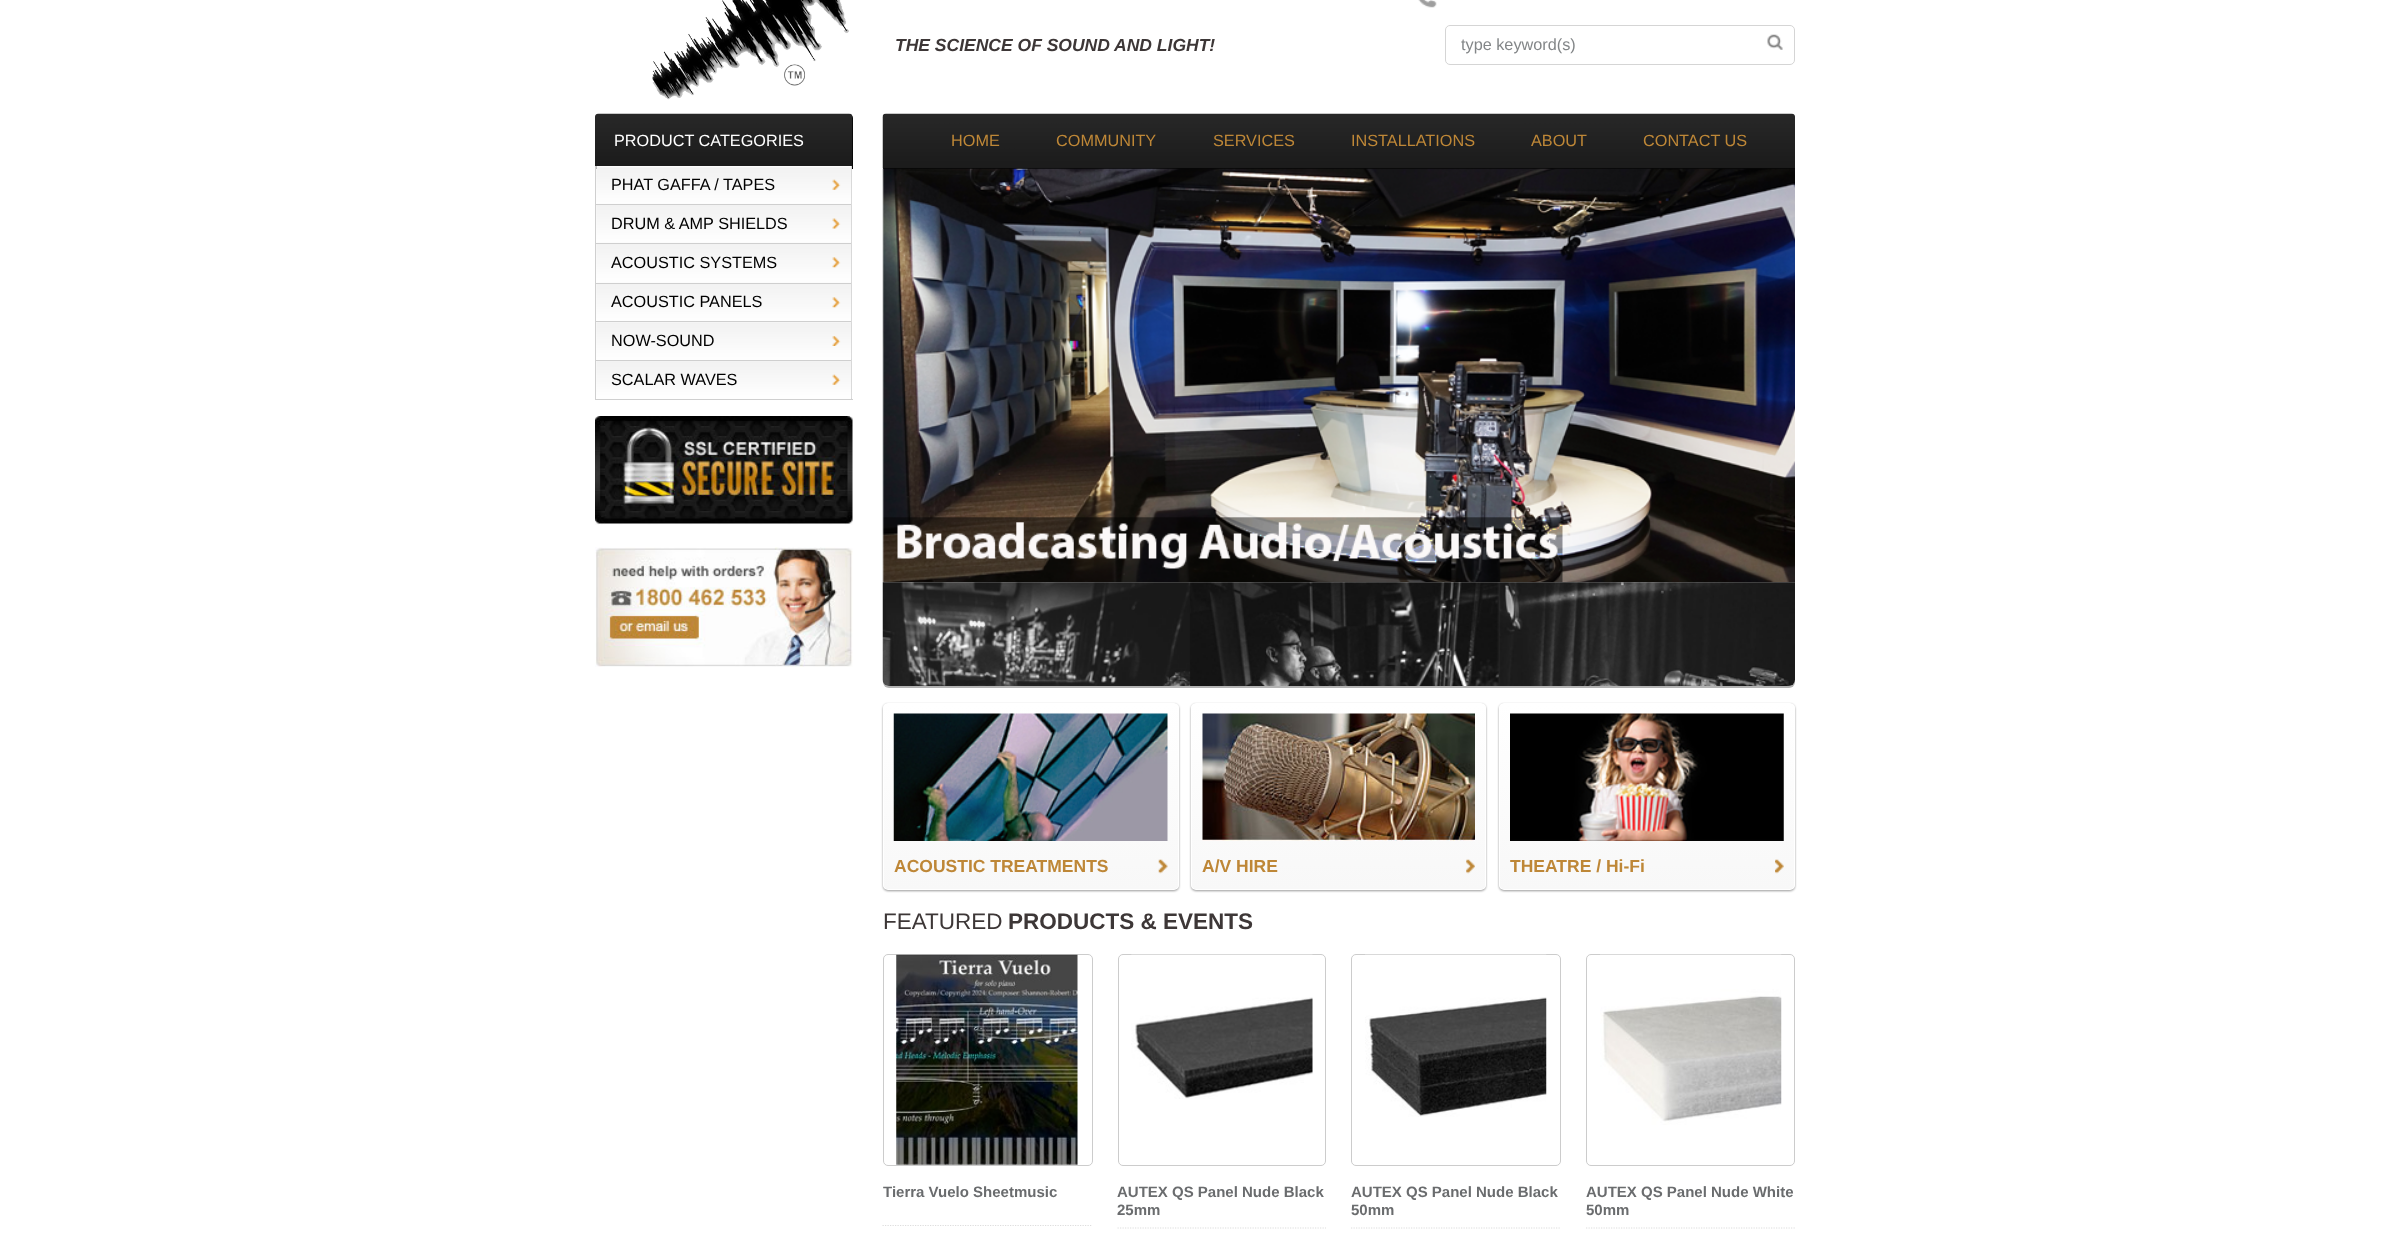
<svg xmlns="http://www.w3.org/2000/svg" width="2390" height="1240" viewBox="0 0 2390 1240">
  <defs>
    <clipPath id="clip1"><rect x="883" y="703" width="296" height="187" rx="5"/></clipPath>
    <linearGradient id="g1" gradientUnits="userSpaceOnUse" x1="1031" y1="704" x2="1031" y2="889"><stop offset="0" stop-color="#fff"/><stop offset="1" stop-color="#f8f8f8"/></linearGradient>
    <clipPath id="clip2"><rect x="1191" y="703" width="295" height="187" rx="5"/></clipPath>
    <linearGradient id="g2" gradientUnits="userSpaceOnUse" x1="1339" y1="704" x2="1339" y2="889"><stop offset="0" stop-color="#fff"/><stop offset="1" stop-color="#f8f8f8"/></linearGradient>
    <clipPath id="clip3"><rect x="1499" y="703" width="296" height="187" rx="5"/></clipPath>
    <linearGradient id="g3" gradientUnits="userSpaceOnUse" x1="1647" y1="704" x2="1647" y2="889"><stop offset="0" stop-color="#fff"/><stop offset="1" stop-color="#f8f8f8"/></linearGradient>
  </defs>
  <rect width="100%" height="100%" fill="#fff"/>
  <image x="652" y="0" width="197" height="100" href="img/1.png"/>
  <image x="1418" y="0" width="19" height="8" href="img/2.png"/>
  <rect x="1445.5" y="25.5" width="349" height="39" rx="4.5" fill="none" stroke="#d5d5d5"/>
  <image x="1767" y="34" width="16" height="16" href="img/3.png"/>
  <path d="M599 114H849C851 114 853 116 853 118V169H595V118C595 116 597 114 599 114Z" fill="#000"/>
  <image x="595" y="113" width="258" height="56" href="img/4.png"/>
  <path d="M851 166h1v234H851z" fill="#cfcfcf"/>
  <path d="M595 399h258v1H595z" fill="#cfcfcf"/>
  <path d="M595 166h1v234H595z" fill="#cfcfcf"/>
  <image x="596" y="166" width="256" height="38" href="img/5.png"/>
  <image x="832" y="179" width="9" height="11" href="img/6.png"/>
  <image x="596" y="203" width="256" height="39" href="img/7.png"/>
  <image x="832" y="218" width="9" height="11" href="img/8.png"/>
  <path d="M596 204h255v1H596z" fill="#cfcfcf"/>
  <image x="596" y="242" width="256" height="40" href="img/9.png"/>
  <image x="832" y="257" width="9" height="11" href="img/10.png"/>
  <path d="M596 243h255v1H596z" fill="#cfcfcf"/>
  <image x="596" y="282" width="256" height="39" href="img/11.png"/>
  <image x="832" y="297" width="9" height="11" href="img/10.png"/>
  <path d="M596 283h255v1H596z" fill="#cfcfcf"/>
  <image x="596" y="321" width="256" height="39" href="img/12.png"/>
  <image x="832" y="336" width="9" height="10" href="img/13.png"/>
  <path d="M596 321h255v1H596z" fill="#cfcfcf"/>
  <image x="596" y="360" width="256" height="39" href="img/14.png"/>
  <image x="832" y="374" width="9" height="11" href="img/15.png"/>
  <path d="M596 360h255v1H596z" fill="#cfcfcf"/>
  <image x="595" y="416" width="258" height="109" href="img/16.png"/>
  <image x="595" y="547" width="258" height="120" href="img/17.png"/>
  <path d="M887 114H1791C1793 114 1795 116 1795 118V169H883V118C883 116 885 114 887 114Z" fill="#000"/>
  <image x="882" y="113" width="913" height="56" href="img/18.png"/>
  <rect x="883" y="170" width="912" height="518" rx="6" fill="#0000004d" filter="blur(0.5px)"/>
  <image x="883" y="582" width="912" height="104" href="img/19.png"/>
  <image x="882" y="168" width="913" height="415" href="img/20.png"/>
  <image x="884" y="683" width="906" height="3" href="img/22.png"/>
  <image x="882" y="582" width="913" height="104" href="img/21.png"/>
  <rect x="883" y="704" width="296" height="187" rx="5" fill="#00000066" filter="blur(1px)"/>
  <g clip-path="url(#clip1)">
    <path d="M883 704h296v185H883z" fill="url(#g1)"/>
  </g>
  <rect x="883.5" y="703.5" width="295" height="186" rx="4.5" fill="none" stroke="#fff"/>
  <image x="893" y="713" width="275" height="128" href="img/23.png"/>
  <image x="1158" y="859" width="10" height="15" href="img/24.png"/>
  <rect x="1191" y="704" width="295" height="187" rx="5" fill="#00000066" filter="blur(1px)"/>
  <g clip-path="url(#clip2)">
    <path d="M1191 704h295v185H1191z" fill="url(#g2)"/>
  </g>
  <rect x="1191.5" y="703.5" width="294" height="186" rx="4.5" fill="none" stroke="#fff"/>
  <image x="1202" y="713" width="273" height="128" href="img/25.png"/>
  <image x="1466" y="859" width="9" height="15" href="img/26.png"/>
  <rect x="1499" y="704" width="296" height="187" rx="5" fill="#00000066" filter="blur(1px)"/>
  <g clip-path="url(#clip3)">
    <path d="M1499 704h296v185H1499z" fill="url(#g3)"/>
  </g>
  <rect x="1499.5" y="703.5" width="295" height="186" rx="4.5" fill="none" stroke="#fff"/>
  <image x="1510" y="713" width="274" height="128" href="img/27.png"/>
  <image x="1775" y="859" width="9" height="15" href="img/28.png"/>
  <rect x="883.5" y="954.5" width="209" height="211" rx="4.5" fill="none" stroke="#ccc"/>
  <image x="896" y="954" width="182" height="211" href="img/29.png"/>
  <path d="M882.5 1225.5H1092.5" fill="none" stroke="#ddd" stroke-width="1.2" stroke-dasharray="1.25 1.25"/>
  <rect x="1118.5" y="954.5" width="207" height="211" rx="4.5" fill="none" stroke="#ccc"/>
  <image x="1131" y="954" width="182" height="145" href="img/30.png"/>
  <path d="M1117.5 1228H1326" fill="none" stroke="#ddd" stroke-width="1.2" stroke-dasharray="1.25 1.25"/>
  <rect x="1351.5" y="954.5" width="209" height="211" rx="4.5" fill="none" stroke="#ccc"/>
  <image x="1365" y="954" width="182" height="163" href="img/31.png"/>
  <path d="M1351 1228H1561" fill="none" stroke="#ddd" stroke-width="1.2" stroke-dasharray="1.25 1.25"/>
  <rect x="1586.5" y="954.5" width="208" height="211" rx="4.5" fill="none" stroke="#ccc"/>
  <image x="1600" y="954" width="182" height="171" href="img/32.png"/>
  <path d="M1586 1228H1795" fill="none" stroke="#ddd" stroke-width="1.2" stroke-dasharray="1.25 1.25"/>
  <text x="895" y="51" font-family="Liberation Sans" font-size="17.5" font-weight="bold" font-style="italic" fill="#3d3737">THE SCIENCE OF SOUND AND LIGHT!</text>
  <text x="1461" y="50" font-family="Liberation Sans" font-size="16.25" fill="#838688">type keyword(s)</text>
  <text x="614" y="146" font-family="Liberation Sans" font-size="16.25" fill="#fff">PRODUCT CATEGORIES</text>
  <g font-family="Liberation Sans" font-size="16.25" fill="#000">
    <text x="611" y="190">PHAT GAFFA / TAPES</text>
    <text x="611" y="229">DRUM &amp; AMP SHIELDS</text>
    <text x="611" y="268">ACOUSTIC SYSTEMS</text>
    <text x="611" y="307">ACOUSTIC PANELS</text>
    <text x="611" y="346">NOW-SOUND</text>
    <text x="611" y="385">SCALAR WAVES</text>
  </g>
  <g font-family="Liberation Sans" font-size="16.25" fill="#be8737">
    <text x="951" y="146">HOME</text>
    <text x="1056" y="146">COMMUNITY</text>
    <text x="1213" y="146">SERVICES</text>
    <text x="1351" y="146">INSTALLATIONS</text>
    <text x="1531" y="146">ABOUT</text>
    <text x="1643" y="146">CONTACT US</text>
  </g>
  <g font-family="Liberation Sans" font-size="17.5" font-weight="bold" fill="#be8737">
    <text x="894" y="872">ACOUSTIC TREATMENTS</text>
    <text x="1202" y="872">A/V HIRE</text>
    <text x="1510" y="872">THEATRE / Hi-Fi</text>
  </g>
  <text x="883" y="929" font-family="Liberation Sans" font-size="22.5" fill="#3d3737">FEATURED</text>
  <text x="1008" y="929" font-family="Liberation Sans" font-size="22.5" font-weight="bold" fill="#3d3737">PRODUCTS &amp; EVENTS</text>
  <g font-family="Liberation Sans" font-size="15" font-weight="bold" fill="#6a6c6e">
    <text x="883" y="1197">Tierra Vuelo Sheetmusic</text>
    <text x="1117" y="1197">AUTEX QS Panel Nude Black</text>
    <text x="1117" y="1215">25mm</text>
    <text x="1351" y="1197">AUTEX QS Panel Nude Black</text>
    <text x="1351" y="1215">50mm</text>
    <text x="1586" y="1197">AUTEX QS Panel Nude White</text>
    <text x="1586" y="1215">50mm</text>
  </g>
</svg>
